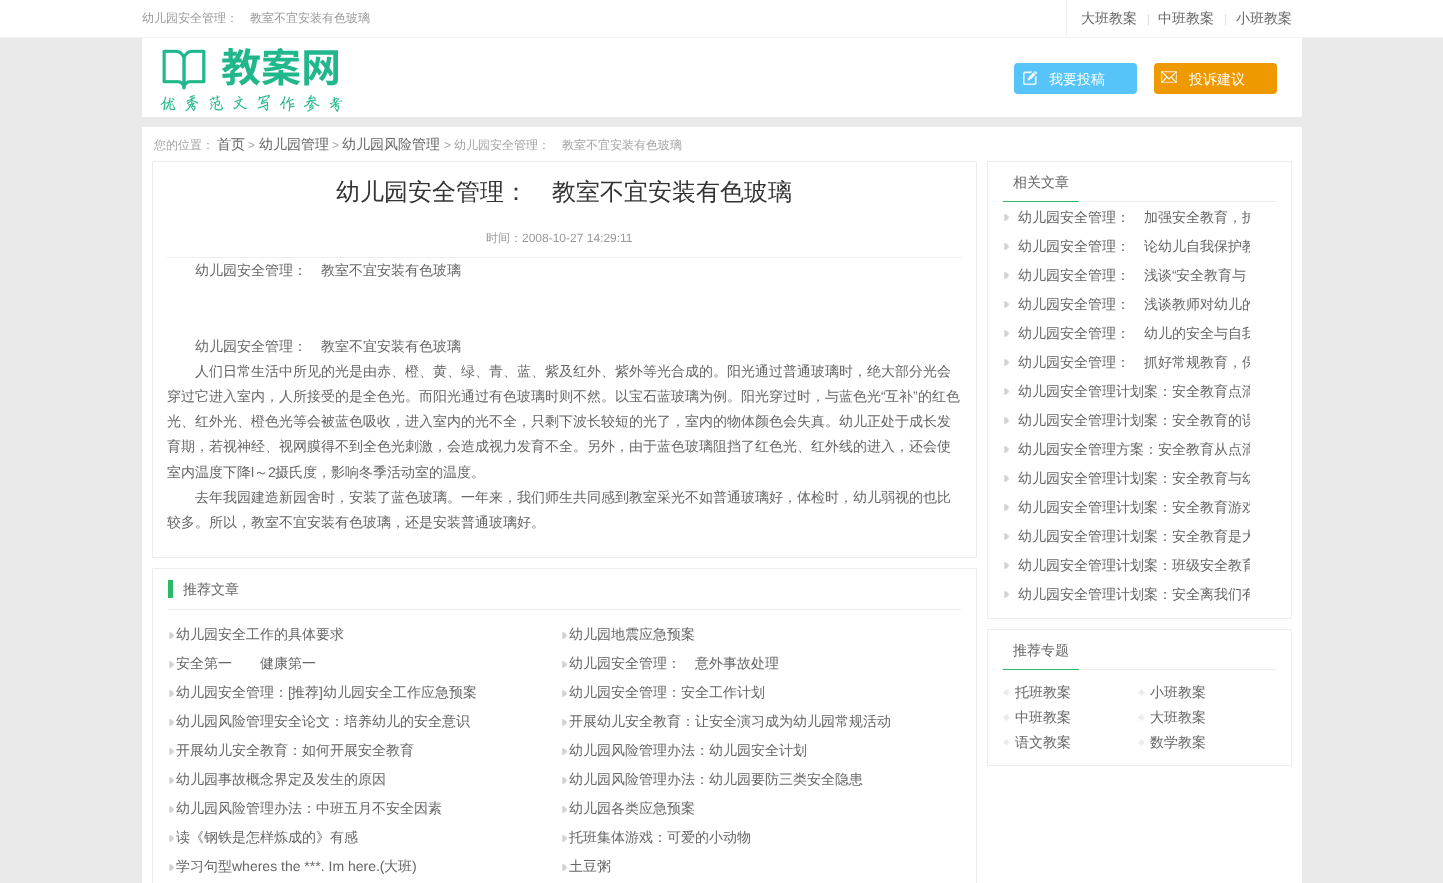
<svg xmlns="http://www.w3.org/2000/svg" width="1443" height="883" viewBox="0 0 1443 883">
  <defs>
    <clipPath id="clip1"><path d="M167 258h795v277H167z"/></clipPath>
    <clipPath id="clip2"><path d="M1018 202h232v29H1018z"/></clipPath>
    <clipPath id="clip3"><path d="M1018 231h232v29H1018z"/></clipPath>
    <clipPath id="clip4"><path d="M1018 289h232v29H1018z"/></clipPath>
    <clipPath id="clip5"><path d="M1018 318h232v29H1018z"/></clipPath>
    <clipPath id="clip6"><path d="M1018 347h232v29H1018z"/></clipPath>
    <clipPath id="clip7"><path d="M1018 376h232v29H1018z"/></clipPath>
    <clipPath id="clip8"><path d="M1018 405h232v29H1018z"/></clipPath>
    <clipPath id="clip9"><path d="M1018 434h232v29H1018z"/></clipPath>
    <clipPath id="clip10"><path d="M1018 463h232v29H1018z"/></clipPath>
    <clipPath id="clip11"><path d="M1018 492h232v29H1018z"/></clipPath>
    <clipPath id="clip12"><path d="M1018 521h232v29H1018z"/></clipPath>
    <clipPath id="clip13"><path d="M1018 550h232v29H1018z"/></clipPath>
    <clipPath id="clip14"><path d="M1018 579h232v29H1018z"/></clipPath>
  </defs>
  <rect width="100%" height="100%" fill="#eaeaea"/>
  <path d="M0 0h1443v37H0z" fill="#fff"/>
  <path d="M0 37h1443v1H0z" fill="#f2f2f2"/>
  <path d="M1066 0h1v37H1066z" fill="#f2f2f2"/>
  <path d="M142 38h1160v79H142z" fill="#fff"/>
  <image x="160" y="47" width="183" height="65" href="img/1.png"/>
  <rect x="1014" y="63" width="123" height="31" rx="4" fill="#56c4f8"/>
  <image x="1023" y="71" width="14" height="14" href="img/2.png"/>
  <rect x="1154" y="63" width="123" height="31" rx="4" fill="#ef9901"/>
  <image x="1161" y="71" width="16" height="12" href="img/3.png"/>
  <path d="M142 127h1160v756H142z" fill="#fff"/>
  <path d="M152.5 161.5h824v396H152.5z" fill="none" stroke="#ececec"/>
  <path d="M167 257h795v1H167z" fill="#eee"/>
  <path d="M152.5 568.5h824v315H152.5z" fill="none" stroke="#ececec"/>
  <path d="M168 580h5v18H168z" fill="#2bb967"/>
  <path d="M168 609h793v1H168z" fill="#ececec"/>
  <image x="169" y="632" width="5" height="7" href="img/4.png"/>
  <image x="562" y="632" width="5" height="7" href="img/5.png"/>
  <image x="169" y="661" width="5" height="7" href="img/4.png"/>
  <image x="562" y="661" width="5" height="7" href="img/5.png"/>
  <image x="169" y="690" width="5" height="7" href="img/4.png"/>
  <image x="562" y="690" width="5" height="7" href="img/5.png"/>
  <image x="169" y="719" width="5" height="7" href="img/4.png"/>
  <image x="562" y="719" width="5" height="7" href="img/5.png"/>
  <image x="169" y="748" width="5" height="7" href="img/4.png"/>
  <image x="562" y="748" width="5" height="7" href="img/5.png"/>
  <image x="169" y="777" width="5" height="7" href="img/4.png"/>
  <image x="562" y="777" width="5" height="7" href="img/5.png"/>
  <image x="169" y="806" width="5" height="7" href="img/4.png"/>
  <image x="562" y="806" width="5" height="7" href="img/5.png"/>
  <image x="169" y="835" width="5" height="7" href="img/4.png"/>
  <image x="562" y="835" width="5" height="7" href="img/5.png"/>
  <image x="169" y="864" width="5" height="7" href="img/4.png"/>
  <image x="562" y="864" width="5" height="7" href="img/5.png"/>
  <path d="M987.5 161.5h304v457H987.5z" fill="none" stroke="#ececec"/>
  <path d="M1079 201h197v1H1079z" fill="#ececec"/>
  <path d="M1003 201h76v1H1003z" fill="#2bb866"/>
  <image x="1004" y="214" width="5" height="7" href="img/5.png"/>
  <image x="1004" y="243" width="5" height="7" href="img/5.png"/>
  <image x="1004" y="272" width="5" height="7" href="img/5.png"/>
  <image x="1004" y="301" width="5" height="7" href="img/5.png"/>
  <image x="1004" y="330" width="5" height="7" href="img/5.png"/>
  <image x="1004" y="359" width="5" height="7" href="img/5.png"/>
  <image x="1004" y="388" width="5" height="7" href="img/5.png"/>
  <image x="1004" y="417" width="5" height="7" href="img/5.png"/>
  <image x="1004" y="446" width="5" height="7" href="img/5.png"/>
  <image x="1004" y="475" width="5" height="7" href="img/5.png"/>
  <image x="1004" y="504" width="5" height="7" href="img/5.png"/>
  <image x="1004" y="533" width="5" height="7" href="img/5.png"/>
  <image x="1004" y="562" width="5" height="7" href="img/5.png"/>
  <image x="1004" y="591" width="5" height="7" href="img/5.png"/>
  <path d="M987.5 629.5h304v136H987.5z" fill="none" stroke="#ececec"/>
  <path d="M1079 669h197v1H1079z" fill="#ececec"/>
  <path d="M1003 669h76v1H1003z" fill="#2bb866"/>
  <image x="1003" y="689" width="7" height="7" href="img/6.png"/>
  <image x="1138" y="689" width="7" height="7" href="img/6.png"/>
  <image x="1003" y="714" width="7" height="7" href="img/6.png"/>
  <image x="1138" y="714" width="7" height="7" href="img/6.png"/>
  <image x="1003" y="739" width="7" height="7" href="img/6.png"/>
  <image x="1138" y="739" width="7" height="7" href="img/6.png"/>
  <text x="142" y="22" font-family="WenQuanYi Zen Hei" font-size="12" font-weight="500" fill="#999">幼儿园安全管理：　教室不宜安装有色玻璃</text>
  <text x="1081" y="23" font-family="WenQuanYi Zen Hei" font-size="14" font-weight="500" fill="#666">大班教案</text>
  <text x="1147" y="23" font-family="Liberation Sans" font-size="12" fill="#ddd">|</text>
  <text x="1158" y="23" font-family="WenQuanYi Zen Hei" font-size="14" font-weight="500" fill="#666">中班教案</text>
  <text x="1224" y="23" font-family="Liberation Sans" font-size="12" fill="#ddd">|</text>
  <text x="1236" y="23" font-family="WenQuanYi Zen Hei" font-size="14" font-weight="500" fill="#666">小班教案</text>
  <g font-family="WenQuanYi Zen Hei" font-size="14" font-weight="500" fill="#fff">
    <text x="1049" y="84">我要投稿</text>
    <text x="1189" y="84">投诉建议</text>
  </g>
  <text x="154" y="149" font-family="WenQuanYi Zen Hei" font-size="12" font-weight="500" fill="#a3a3a3">您的位置：</text>
  <text x="217" y="149" font-family="WenQuanYi Zen Hei" font-size="14" font-weight="500" fill="#666">首页</text>
  <text x="248" y="149" font-family="Liberation Sans" font-size="12" fill="#a3a3a3">&gt;</text>
  <text x="259" y="149" font-family="WenQuanYi Zen Hei" font-size="14" font-weight="500" fill="#666">幼儿园管理</text>
  <text x="332" y="149" font-family="Liberation Sans" font-size="12" fill="#a3a3a3">&gt;</text>
  <text x="342" y="149" font-family="WenQuanYi Zen Hei" font-size="14" font-weight="500" fill="#666">幼儿园风险管理</text>
  <text x="444" y="149" font-family="Liberation Sans" font-size="12" fill="#a3a3a3">&gt;</text>
  <text x="454" y="149" font-family="WenQuanYi Zen Hei" font-size="12" font-weight="500" fill="#a3a3a3">幼儿园安全管理：　教室不宜安装有色玻璃</text>
  <text x="336" y="200" font-family="WenQuanYi Zen Hei" font-size="24" font-weight="500" fill="#333">幼儿园安全管理：　教室不宜安装有色玻璃</text>
  <text x="486" y="242" font-family="WenQuanYi Zen Hei" font-size="12" font-weight="500" fill="#999">时间：</text>
  <text x="522" y="242" font-family="Liberation Sans" font-size="12" fill="#999">2008-10-27 14:29:11</text>
  <g font-family="WenQuanYi Zen Hei" font-size="14" font-weight="500" fill="#666">
    <text x="195" y="275">幼儿园安全管理：　教室不宜安装有色玻璃</text>
    <text x="195" y="351">幼儿园安全管理：　教室不宜安装有色玻璃</text>
    <text x="195" y="376">人们日常生活中所见的光是由赤、橙、黄、绿、青、蓝、紫及红外、紫外等光合成的。阳光通过普通玻璃时，绝大部分光会</text>
    <text x="167" y="401">穿过它进入室内，人所接受的是全色光。而阳光通过有色玻璃时则不然。以宝石蓝玻璃为例。阳光穿过时，与蓝色光</text>
  </g>
  <text x="881" y="401" font-family="Liberation Sans" font-size="14" fill="#666">“</text>
  <text x="885" y="401" font-family="WenQuanYi Zen Hei" font-size="14" font-weight="500" fill="#666">互补</text>
  <text x="913" y="401" font-family="Liberation Sans" font-size="14" fill="#666">”</text>
  <g font-family="WenQuanYi Zen Hei" font-size="14" font-weight="500" fill="#666">
    <text x="918" y="401">的红色</text>
    <text x="167" y="426">光、红外光、橙色光等会被蓝色吸收，进入室内的光不全，只剩下波长较短的光了，室内的物体颜色会失真。幼儿正处于成长发</text>
    <text x="167" y="451">育期，若视神经、视网膜得不到全色光刺激，会造成视力发育不全。另外，由于蓝色玻璃阻挡了红色光、红外线的进入，还会使</text>
    <text x="167" y="477">室内温度下降</text>
  </g>
  <text x="251" y="477" font-family="Liberation Sans" font-size="14" fill="#666">l</text>
  <text x="254" y="477" font-family="WenQuanYi Zen Hei" font-size="14" font-weight="500" fill="#666">～</text>
  <text x="268" y="477" font-family="Liberation Sans" font-size="14" fill="#666">2</text>
  <g font-family="WenQuanYi Zen Hei" font-size="14" font-weight="500" fill="#666">
    <text x="275" y="477">摄氏度，影响冬季活动室的温度。</text>
    <text x="195" y="502">去年我园建造新园舍时，安装了蓝色玻璃。一年来，我们师生共同感到教室采光不如普通玻璃好，体检时，幼儿弱视的也比</text>
  </g>
  <g clip-path="url(#clip1)">
    <text x="167" y="527" font-family="WenQuanYi Zen Hei" font-size="14" font-weight="500" fill="#666">较多。所以，教室不宜安装有色玻璃，还是安装普通玻璃好。</text>
  </g>
  <g font-family="WenQuanYi Zen Hei" font-size="14" font-weight="500" fill="#666">
    <text x="183" y="594">推荐文章</text>
    <text x="176" y="639">幼儿园安全工作的具体要求</text>
    <text x="569" y="639">幼儿园地震应急预案</text>
    <text x="176" y="668">安全第一　　健康第一</text>
    <text x="569" y="668">幼儿园安全管理：　意外事故处理</text>
    <text x="176" y="697">幼儿园安全管理：</text>
  </g>
  <text x="288" y="697" font-family="Liberation Sans" font-size="14" fill="#666">[</text>
  <text x="291" y="697" font-family="WenQuanYi Zen Hei" font-size="14" font-weight="500" fill="#666">推荐</text>
  <text x="319" y="697" font-family="Liberation Sans" font-size="14" fill="#666">]</text>
  <g font-family="WenQuanYi Zen Hei" font-size="14" font-weight="500" fill="#666">
    <text x="323" y="697">幼儿园安全工作应急预案</text>
    <text x="569" y="697">幼儿园安全管理：安全工作计划</text>
    <text x="176" y="726">幼儿园风险管理安全论文：培养幼儿的安全意识</text>
    <text x="569" y="726">开展幼儿安全教育：让安全演习成为幼儿园常规活动</text>
    <text x="176" y="755">开展幼儿安全教育：如何开展安全教育</text>
    <text x="569" y="755">幼儿园风险管理办法：幼儿园安全计划</text>
    <text x="176" y="784">幼儿园事故概念界定及发生的原因</text>
    <text x="569" y="784">幼儿园风险管理办法：幼儿园要防三类安全隐患</text>
    <text x="176" y="813">幼儿园风险管理办法：中班五月不安全因素</text>
    <text x="569" y="813">幼儿园各类应急预案</text>
    <text x="176" y="842">读《钢铁是怎样炼成的》有感</text>
    <text x="569" y="842">托班集体游戏：可爱的小动物</text>
    <text x="176" y="871">学习句型</text>
  </g>
  <text x="232" y="871" font-family="Liberation Sans" font-size="14" fill="#666">wheres the ***. Im here.(</text>
  <text x="384" y="871" font-family="WenQuanYi Zen Hei" font-size="14" font-weight="500" fill="#666">大班</text>
  <text x="412" y="871" font-family="Liberation Sans" font-size="14" fill="#666">)</text>
  <g font-family="WenQuanYi Zen Hei" font-size="14" font-weight="500" fill="#666">
    <text x="569" y="871">土豆粥</text>
    <text x="1013" y="187">相关文章</text>
  </g>
  <g clip-path="url(#clip2)">
    <text x="1018" y="222" font-family="WenQuanYi Zen Hei" font-size="14" font-weight="500" fill="#666">幼儿园安全管理：　加强安全教育，护</text>
  </g>
  <g clip-path="url(#clip3)">
    <text x="1018" y="251" font-family="WenQuanYi Zen Hei" font-size="14" font-weight="500" fill="#666">幼儿园安全管理：　论幼儿自我保护教</text>
  </g>
  <text x="1018" y="280" font-family="WenQuanYi Zen Hei" font-size="14" font-weight="500" fill="#666">幼儿园安全管理：　浅谈</text>
  <text x="1172" y="280" font-family="Liberation Sans" font-size="14" fill="#666">“</text>
  <text x="1176" y="280" font-family="WenQuanYi Zen Hei" font-size="14" font-weight="500" fill="#666">安全教育与</text>
  <g clip-path="url(#clip4)">
    <text x="1018" y="309" font-family="WenQuanYi Zen Hei" font-size="14" font-weight="500" fill="#666">幼儿园安全管理：　浅谈教师对幼儿的</text>
  </g>
  <g clip-path="url(#clip5)">
    <text x="1018" y="338" font-family="WenQuanYi Zen Hei" font-size="14" font-weight="500" fill="#666">幼儿园安全管理：　幼儿的安全与自我</text>
  </g>
  <g clip-path="url(#clip6)">
    <text x="1018" y="367" font-family="WenQuanYi Zen Hei" font-size="14" font-weight="500" fill="#666">幼儿园安全管理：　抓好常规教育，保</text>
  </g>
  <g clip-path="url(#clip7)">
    <text x="1018" y="396" font-family="WenQuanYi Zen Hei" font-size="14" font-weight="500" fill="#666">幼儿园安全管理计划案：安全教育点滴</text>
  </g>
  <g clip-path="url(#clip8)">
    <text x="1018" y="425" font-family="WenQuanYi Zen Hei" font-size="14" font-weight="500" fill="#666">幼儿园安全管理计划案：安全教育的误</text>
  </g>
  <g clip-path="url(#clip9)">
    <text x="1018" y="454" font-family="WenQuanYi Zen Hei" font-size="14" font-weight="500" fill="#666">幼儿园安全管理方案：安全教育从点滴</text>
  </g>
  <g clip-path="url(#clip10)">
    <text x="1018" y="483" font-family="WenQuanYi Zen Hei" font-size="14" font-weight="500" fill="#666">幼儿园安全管理计划案：安全教育与幼</text>
  </g>
  <g clip-path="url(#clip11)">
    <text x="1018" y="512" font-family="WenQuanYi Zen Hei" font-size="14" font-weight="500" fill="#666">幼儿园安全管理计划案：安全教育游戏</text>
  </g>
  <g clip-path="url(#clip12)">
    <text x="1018" y="541" font-family="WenQuanYi Zen Hei" font-size="14" font-weight="500" fill="#666">幼儿园安全管理计划案：安全教育是大</text>
  </g>
  <g clip-path="url(#clip13)">
    <text x="1018" y="570" font-family="WenQuanYi Zen Hei" font-size="14" font-weight="500" fill="#666">幼儿园安全管理计划案：班级安全教育</text>
  </g>
  <g clip-path="url(#clip14)">
    <text x="1018" y="599" font-family="WenQuanYi Zen Hei" font-size="14" font-weight="500" fill="#666">幼儿园安全管理计划案：安全离我们有</text>
  </g>
  <g font-family="WenQuanYi Zen Hei" font-size="14" font-weight="500" fill="#666">
    <text x="1013" y="655">推荐专题</text>
    <text x="1015" y="697">托班教案</text>
    <text x="1150" y="697">小班教案</text>
    <text x="1015" y="722">中班教案</text>
    <text x="1150" y="722">大班教案</text>
    <text x="1015" y="747">语文教案</text>
    <text x="1150" y="747">数学教案</text>
  </g>
</svg>
